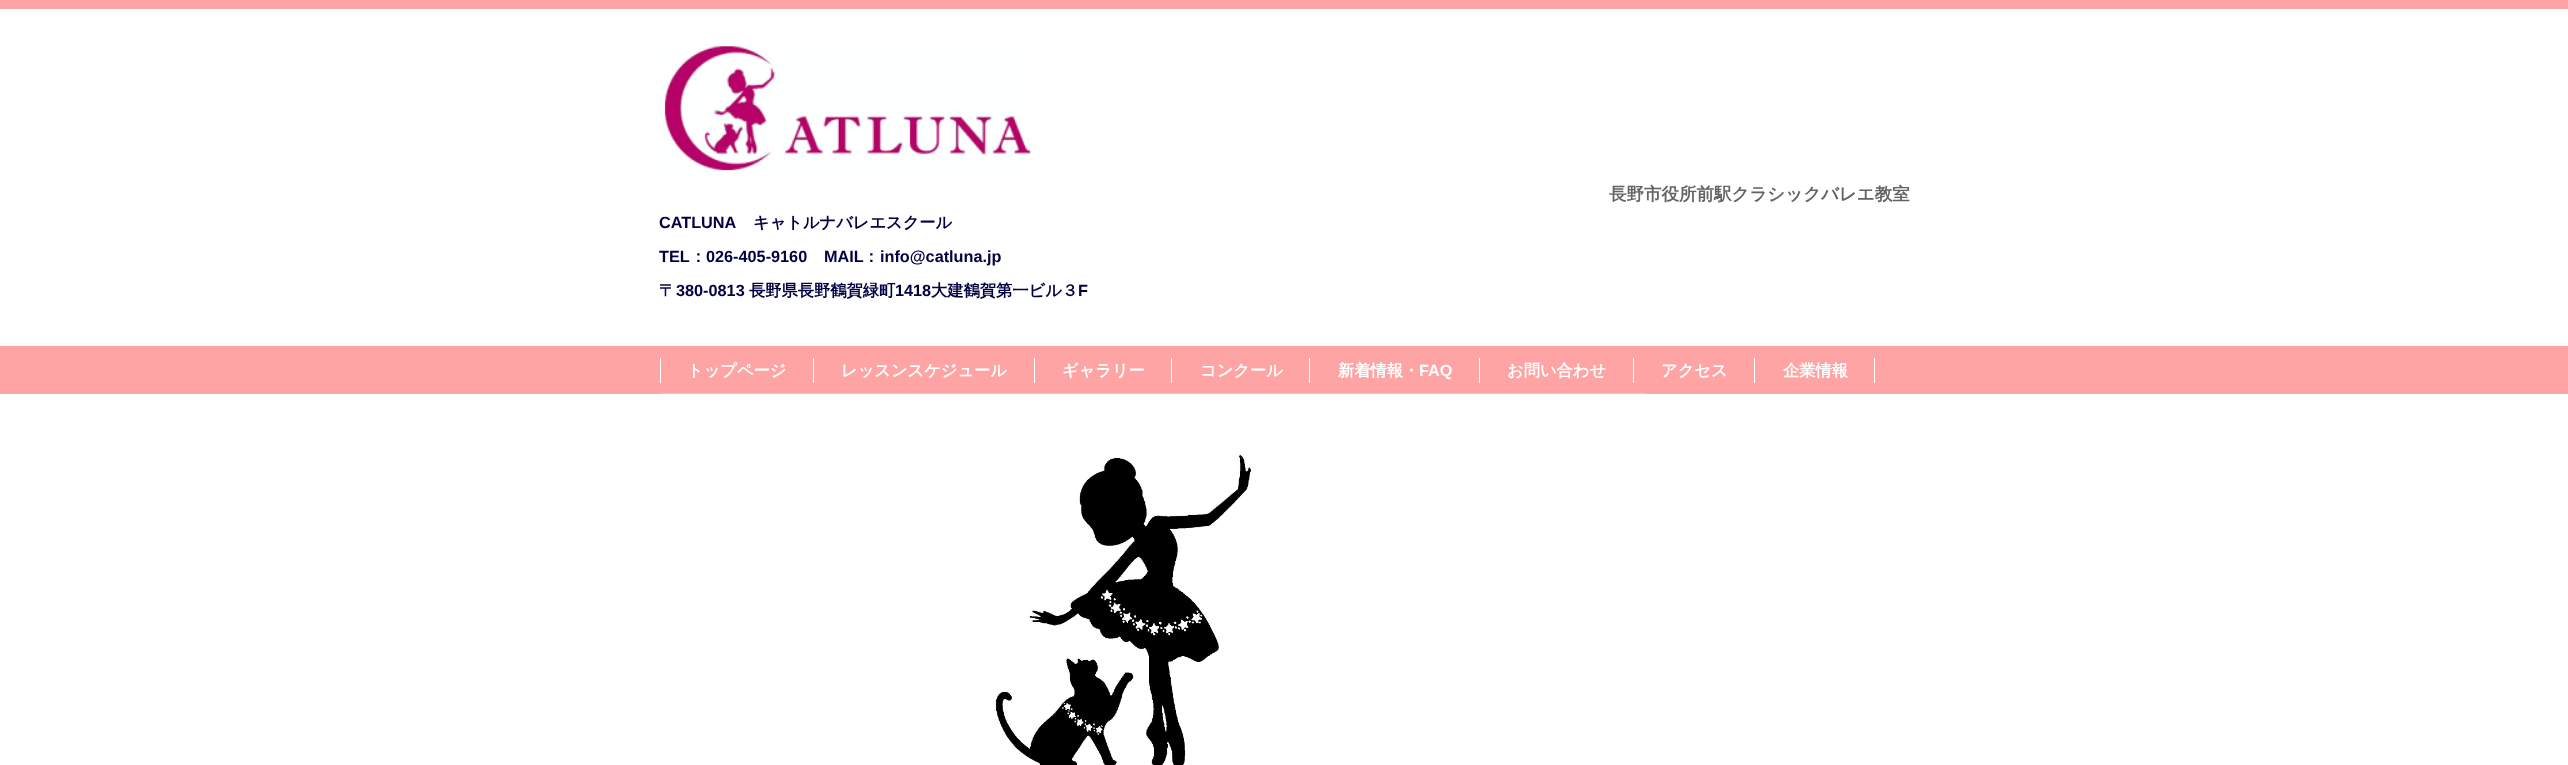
<svg xmlns="http://www.w3.org/2000/svg" width="2568" height="765" viewBox="0 0 2568 765">
  <rect width="100%" height="100%" fill="#fff"/>
  <path d="M0 0h2568v9H0z" fill="#fea4a4"/>
  <image x="660" y="41" width="373" height="134" href="img/1.png"/>
  <path d="M0 346h2568v48H0z" fill="#fea4a4"/>
  <path d="M660 358h1v25H660z" fill="#fff"/>
  <path d="M813 358h1v25H813z" fill="#fff"/>
  <path d="M1034 358h1v25H1034z" fill="#fff"/>
  <path d="M1171 358h1v25H1171z" fill="#fff"/>
  <path d="M1309 358h1v25H1309z" fill="#fff"/>
  <path d="M1479 358h1v25H1479z" fill="#fff"/>
  <path d="M1633 358h1v25H1633z" fill="#fff"/>
  <path d="M1754 358h1v25H1754z" fill="#fff"/>
  <path d="M1874 358h1v25H1874z" fill="#fff"/>
  <image x="660" y="393" width="986" height="372" href="img/2.png"/>
  <text x="1609" y="200" font-family="WenQuanYi Zen Hei" font-size="17.5" font-weight="bold" fill="#636363">長野市役所前駅クラシックバレエ教室</text>
  <text x="659" y="228" font-family="Liberation Sans" font-size="16.25" font-weight="bold" fill="#020042">CATLUNA</text>
  <text x="753" y="228" font-family="WenQuanYi Zen Hei" font-size="16.25" font-weight="bold" fill="#020042">キャトルナバレエスクール</text>
  <text x="659" y="262" font-family="Liberation Sans" font-size="16.25" font-weight="bold" fill="#020042">TEL</text>
  <text x="690" y="262" font-family="WenQuanYi Zen Hei" font-size="16.25" font-weight="bold" fill="#020042">：</text>
  <g font-family="Liberation Sans" font-size="16.25" font-weight="bold" fill="#020042">
    <text x="706" y="262">026-405-9160</text>
    <text x="824" y="262">MAIL</text>
  </g>
  <text x="863" y="262" font-family="WenQuanYi Zen Hei" font-size="16.25" font-weight="bold" fill="#020042">：</text>
  <text x="880" y="262" font-family="Liberation Sans" font-size="16.25" font-weight="bold" fill="#020042">info@catluna.jp</text>
  <text x="659" y="296" font-family="WenQuanYi Zen Hei" font-size="16.25" font-weight="bold" fill="#020042">〒</text>
  <text x="676" y="296" font-family="Liberation Sans" font-size="16.25" font-weight="bold" fill="#020042">380-0813</text>
  <text x="749" y="296" font-family="WenQuanYi Zen Hei" font-size="16.25" font-weight="bold" fill="#020042">長野県長野鶴賀緑町</text>
  <text x="895" y="296" font-family="Liberation Sans" font-size="16.25" font-weight="bold" fill="#020042">1418</text>
  <text x="931" y="296" font-family="WenQuanYi Zen Hei" font-size="16.25" font-weight="bold" fill="#020042">大建鶴賀第一ビル３</text>
  <text x="1078" y="296" font-family="Liberation Sans" font-size="16.25" font-weight="bold" fill="#020042">F</text>
  <g font-family="WenQuanYi Zen Hei" font-size="16.25" font-weight="bold" fill="#fff">
    <text x="687" y="376">トップページ</text>
    <text x="841" y="376">レッスンスケジュール</text>
    <text x="1062" y="376">ギャラリー</text>
    <text x="1200" y="376">コンクール</text>
    <text x="1338" y="376">新着情報・</text>
  </g>
  <text x="1419" y="376" font-family="Liberation Sans" font-size="16.25" font-weight="bold" fill="#fff">FAQ</text>
  <g font-family="WenQuanYi Zen Hei" font-size="16.25" font-weight="bold" fill="#fff">
    <text x="1507" y="376">お問い合わせ</text>
    <text x="1661" y="376">アクセス</text>
    <text x="1783" y="376">企業情報</text>
  </g>
</svg>
